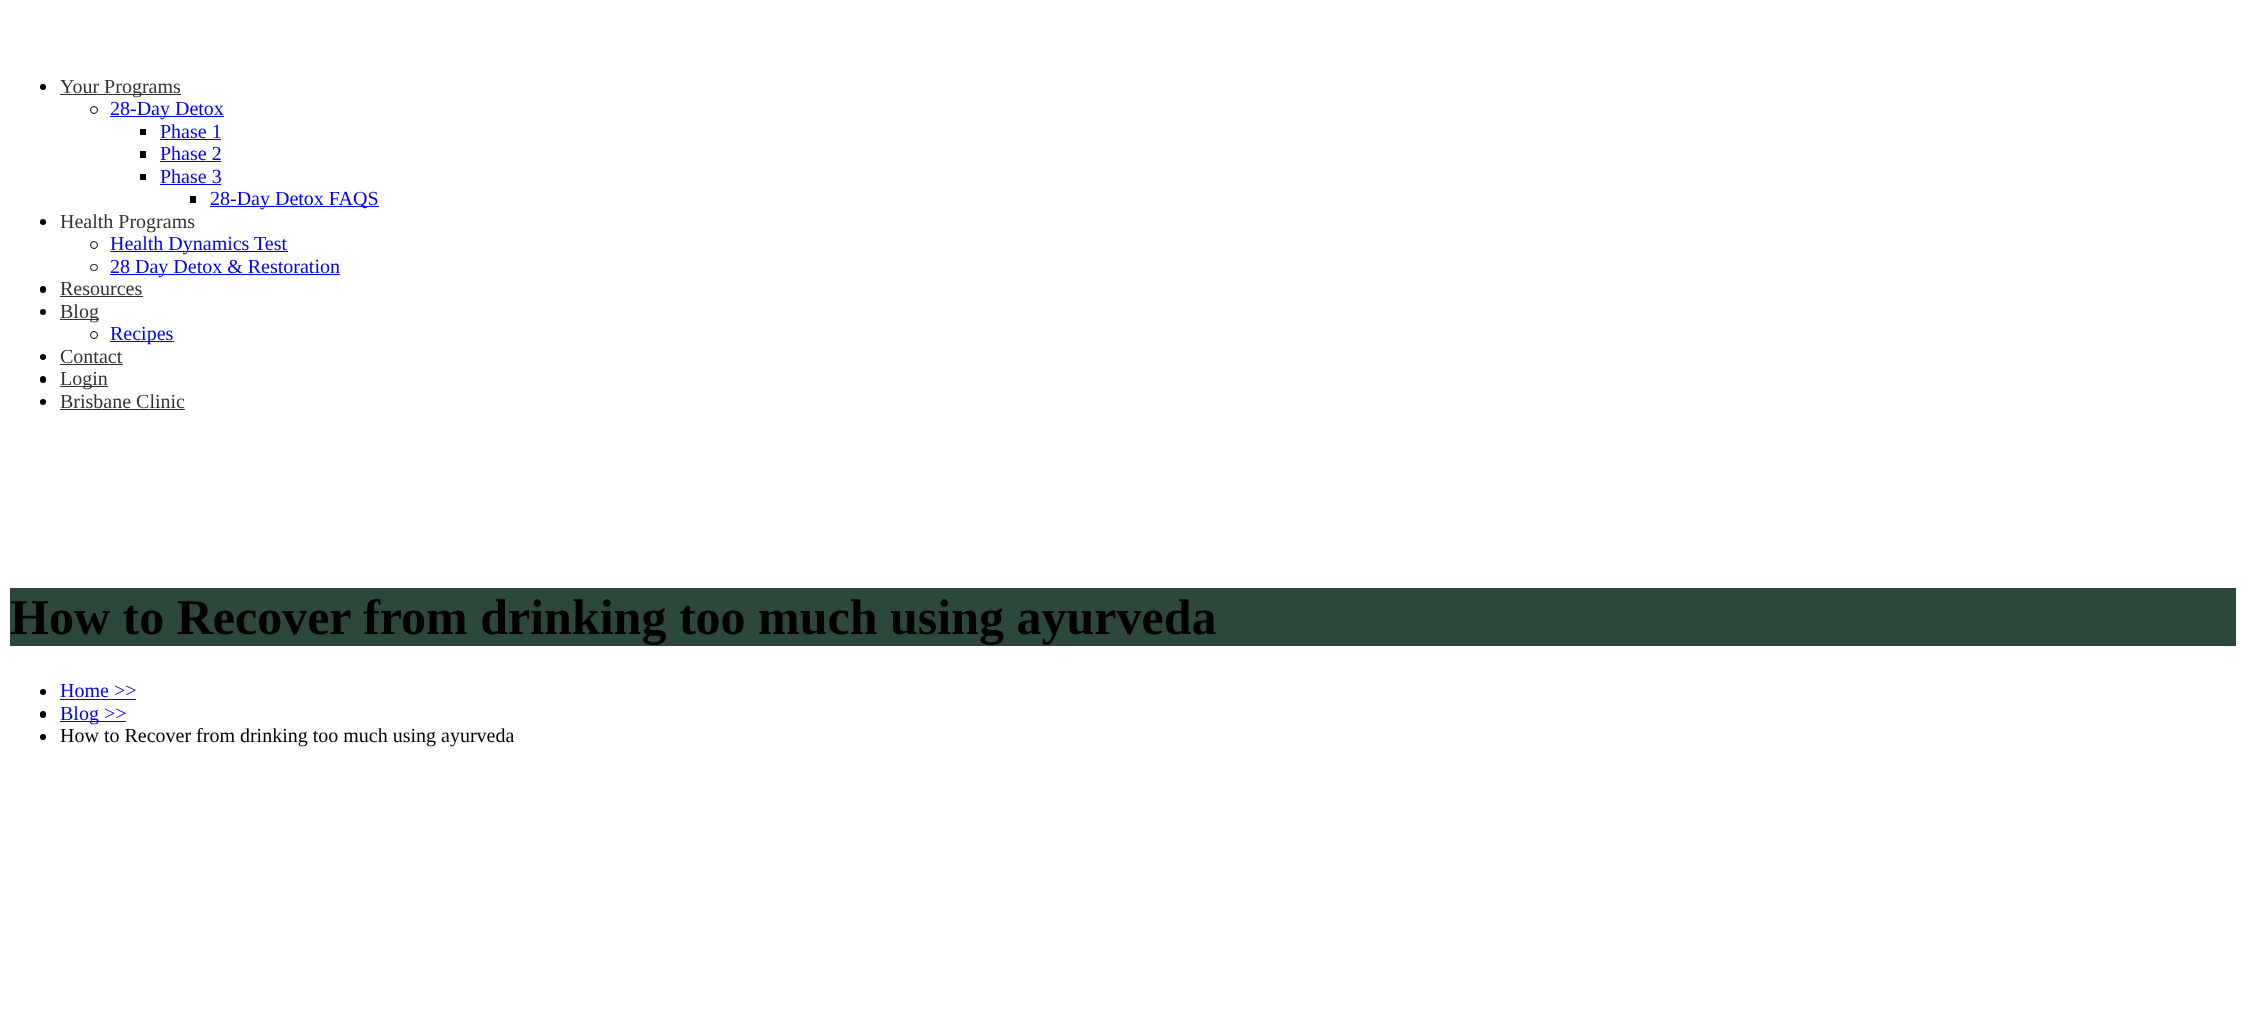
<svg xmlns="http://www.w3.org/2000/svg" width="2246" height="1010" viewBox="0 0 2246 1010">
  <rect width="100%" height="100%" fill="#fff"/>
  <circle cx="43" cy="87" r="3" fill="#000"/>
  <path d="M60 94h121v1H60z" fill="#333"/>
  <circle cx="94" cy="110" r="3.5" fill="none" stroke="#000"/>
  <path d="M110 116h114v1H110z" fill="#00e"/>
  <path d="M140 129h6v6H140z" fill="#000"/>
  <path d="M160 139h61v1H160z" fill="#00e"/>
  <path d="M140 151h6v7H140z" fill="#000"/>
  <path d="M160 161h61v1H160z" fill="#00e"/>
  <path d="M140 174h6v6H140z" fill="#000"/>
  <path d="M160 184h61v1H160z" fill="#00e"/>
  <path d="M190 196h6v7H190z" fill="#000"/>
  <path d="M210 206h169v1H210z" fill="#00e"/>
  <circle cx="43" cy="222" r="3" fill="#000"/>
  <circle cx="94" cy="245" r="3.5" fill="none" stroke="#000"/>
  <path d="M110 251h178v1H110z" fill="#00e"/>
  <rect x="90.5" y="264.5" width="7" height="6" rx="3" fill="none" stroke="#000"/>
  <path d="M110 274h230v1H110z" fill="#00e"/>
  <rect x="40" y="286" width="6" height="7" rx="3" fill="#000"/>
  <path d="M60 296h83v1H60z" fill="#333"/>
  <circle cx="43" cy="312" r="3" fill="#000"/>
  <path d="M60 319h39v1H60z" fill="#333"/>
  <circle cx="94" cy="335" r="3.5" fill="none" stroke="#000"/>
  <path d="M110 341h64v1H110z" fill="#00e"/>
  <circle cx="43" cy="357" r="3" fill="#000"/>
  <path d="M60 364h63v1H60z" fill="#333"/>
  <rect x="40" y="376" width="6" height="7" rx="3" fill="#000"/>
  <path d="M60 386h48v1H60z" fill="#333"/>
  <circle cx="43" cy="402" r="3" fill="#000"/>
  <path d="M60 409h125v1H60z" fill="#333"/>
  <path d="M10 588h2226v58H10z" fill="#2c483b"/>
  <circle cx="43" cy="692" r="3" fill="#000"/>
  <path d="M60 699h76v1H60z" fill="#00e"/>
  <rect x="40" y="711" width="6" height="7" rx="3" fill="#000"/>
  <path d="M60 721h66v1H60z" fill="#00e"/>
  <circle cx="43" cy="737" r="3" fill="#000"/>
  <text x="60" y="93" font-family="Liberation Serif" font-size="20" fill="#333">Your Programs</text>
  <g font-family="Liberation Serif" font-size="20" fill="#00e">
    <text x="110" y="115">28-Day Detox</text>
    <text x="160" y="138">Phase 1</text>
    <text x="160" y="160">Phase 2</text>
    <text x="160" y="183">Phase 3</text>
    <text x="210" y="205">28-Day Detox FAQS</text>
  </g>
  <text x="60" y="228" font-family="Liberation Serif" font-size="20" fill="#333">Health Programs</text>
  <g font-family="Liberation Serif" font-size="20" fill="#00e">
    <text x="110" y="250">Health Dynamics Test</text>
    <text x="110" y="273">28 Day Detox &amp; Restoration</text>
  </g>
  <g font-family="Liberation Serif" font-size="20" fill="#333">
    <text x="60" y="295">Resources</text>
    <text x="60" y="318">Blog</text>
  </g>
  <text x="110" y="340" font-family="Liberation Serif" font-size="20" fill="#00e">Recipes</text>
  <g font-family="Liberation Serif" font-size="20" fill="#333">
    <text x="60" y="363">Contact</text>
    <text x="60" y="385">Login</text>
    <text x="60" y="408">Brisbane Clinic</text>
  </g>
  <text x="10" y="634" font-family="Liberation Serif" font-size="50" font-weight="bold" fill="#000">How to Recover from drinking too much using ayurveda</text>
  <g font-family="Liberation Serif" font-size="20" fill="#00e">
    <text x="60" y="697">Home &gt;&gt;</text>
    <text x="60" y="720">Blog &gt;&gt;</text>
  </g>
  <text x="60" y="742" font-family="Liberation Serif" font-size="20" fill="#000">How to Recover from drinking too much using ayurveda</text>
</svg>
